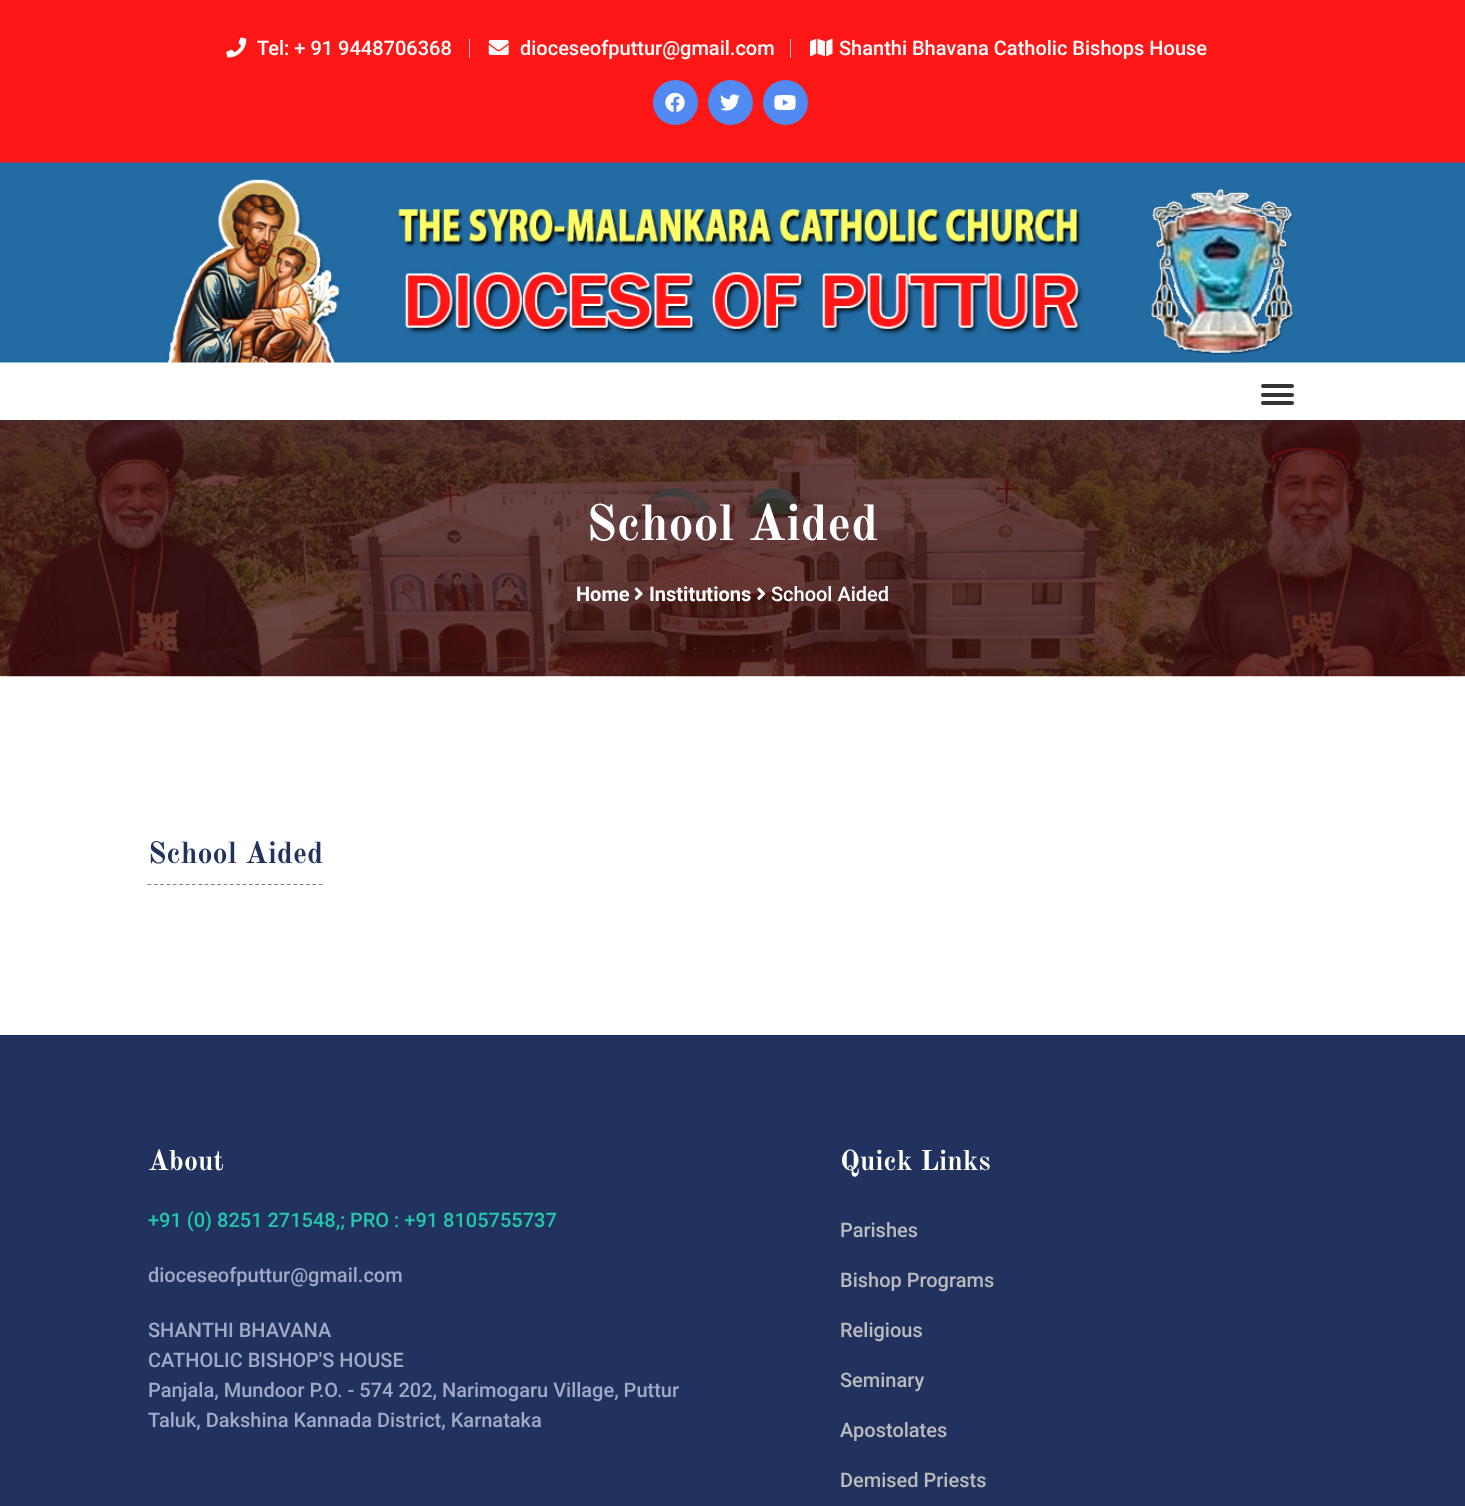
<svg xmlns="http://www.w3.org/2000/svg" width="1465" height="1506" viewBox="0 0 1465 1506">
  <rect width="100%" height="100%" fill="#fff"/>
  <path d="M0 0h1465v163H0z" fill="#fe1717"/>
  <image x="226" y="37" width="21" height="21" href="img/1.png"/>
  <path d="M469 39h1v19H469z" fill="#ffb9b9"/>
  <image x="488" y="40" width="21" height="15" href="img/2.png"/>
  <path d="M790 39h1v19H790z" fill="#ffb9b9"/>
  <image x="810" y="38" width="23" height="19" href="img/3.png"/>
  <circle cx="675.5" cy="102.5" r="22.5" fill="#508af2"/>
  <image x="665" y="92" width="20" height="20" href="img/4.png"/>
  <circle cx="730.5" cy="102.5" r="22.5" fill="#508af2"/>
  <image x="720" y="94" width="20" height="17" href="img/5.png"/>
  <circle cx="785.5" cy="102.5" r="22.5" fill="#508af2"/>
  <image x="774" y="95" width="22" height="15" href="img/6.png"/>
  <image x="0" y="162" width="1465" height="201" href="img/7.png"/>
  <rect x="1261" y="384" width="33" height="4" rx="2" fill="#333"/>
  <rect x="1261" y="393" width="33" height="4" rx="2" fill="#333"/>
  <rect x="1261" y="401" width="33" height="4" rx="2" fill="#333"/>
  <image x="0" y="420" width="1465" height="257" href="img/8.png"/>
  <image x="634" y="587" width="9" height="13" href="img/9.png"/>
  <image x="757" y="587" width="9" height="13" href="img/10.png"/>
  <path d="M147.5 884.5H322.5" fill="none" stroke="#808080" stroke-width="1.2" stroke-dasharray="3.75 2.59"/>
  <path d="M0 1035h1465v471H0z" fill="#21325e"/>
  <g font-family="Roboto" font-size="20" font-weight="500" fill="#fff">
    <text x="257" y="55">Tel: + 91 9448706368</text>
    <text x="520" y="55">dioceseofputtur@gmail.com</text>
    <text x="839" y="55">Shanthi Bhavana Catholic Bishops House</text>
  </g>
  <text x="586" y="540" font-family="Old Standard TT" font-size="50" font-weight="bold" fill="#fff">School Aided</text>
  <g font-family="Roboto" font-size="20" font-weight="bold" fill="#fff">
    <text x="576" y="601">Home</text>
    <text x="649" y="601">Institutions</text>
  </g>
  <text x="771" y="601" font-family="Roboto" font-size="20" font-weight="500" fill="#fff">School Aided</text>
  <text x="148" y="863" font-family="Old Standard TT" font-size="30" font-weight="bold" fill="#21325e">School Aided</text>
  <text x="148" y="1170" font-family="Old Standard TT" font-size="28" font-weight="bold" fill="#fff">About</text>
  <text x="148" y="1227" font-family="Roboto" font-size="20" font-weight="500" fill="#21c8a9">+91 (0) 8251 271548,; PRO : +91 8105755737</text>
  <g font-family="Roboto" font-size="20" font-weight="500" fill="#9eaac7">
    <text x="148" y="1282">dioceseofputtur@gmail.com</text>
    <text x="148" y="1337">SHANTHI BHAVANA</text>
    <text x="148" y="1367">CATHOLIC BISHOP'S HOUSE</text>
    <text x="148" y="1397">Panjala, Mundoor P.O. - 574 202, Narimogaru Village, Puttur</text>
    <text x="148" y="1427">Taluk, Dakshina Kannada District, Karnataka</text>
  </g>
  <text x="840" y="1170" font-family="Old Standard TT" font-size="28" font-weight="bold" fill="#fff">Quick Links</text>
  <g font-family="Roboto" font-size="20" font-weight="500" fill="#bbb">
    <text x="840" y="1237">Parishes</text>
    <text x="840" y="1287">Bishop Programs</text>
    <text x="840" y="1337">Religious</text>
    <text x="840" y="1387">Seminary</text>
    <text x="840" y="1437">Apostolates</text>
    <text x="840" y="1487">Demised Priests</text>
  </g>
</svg>
